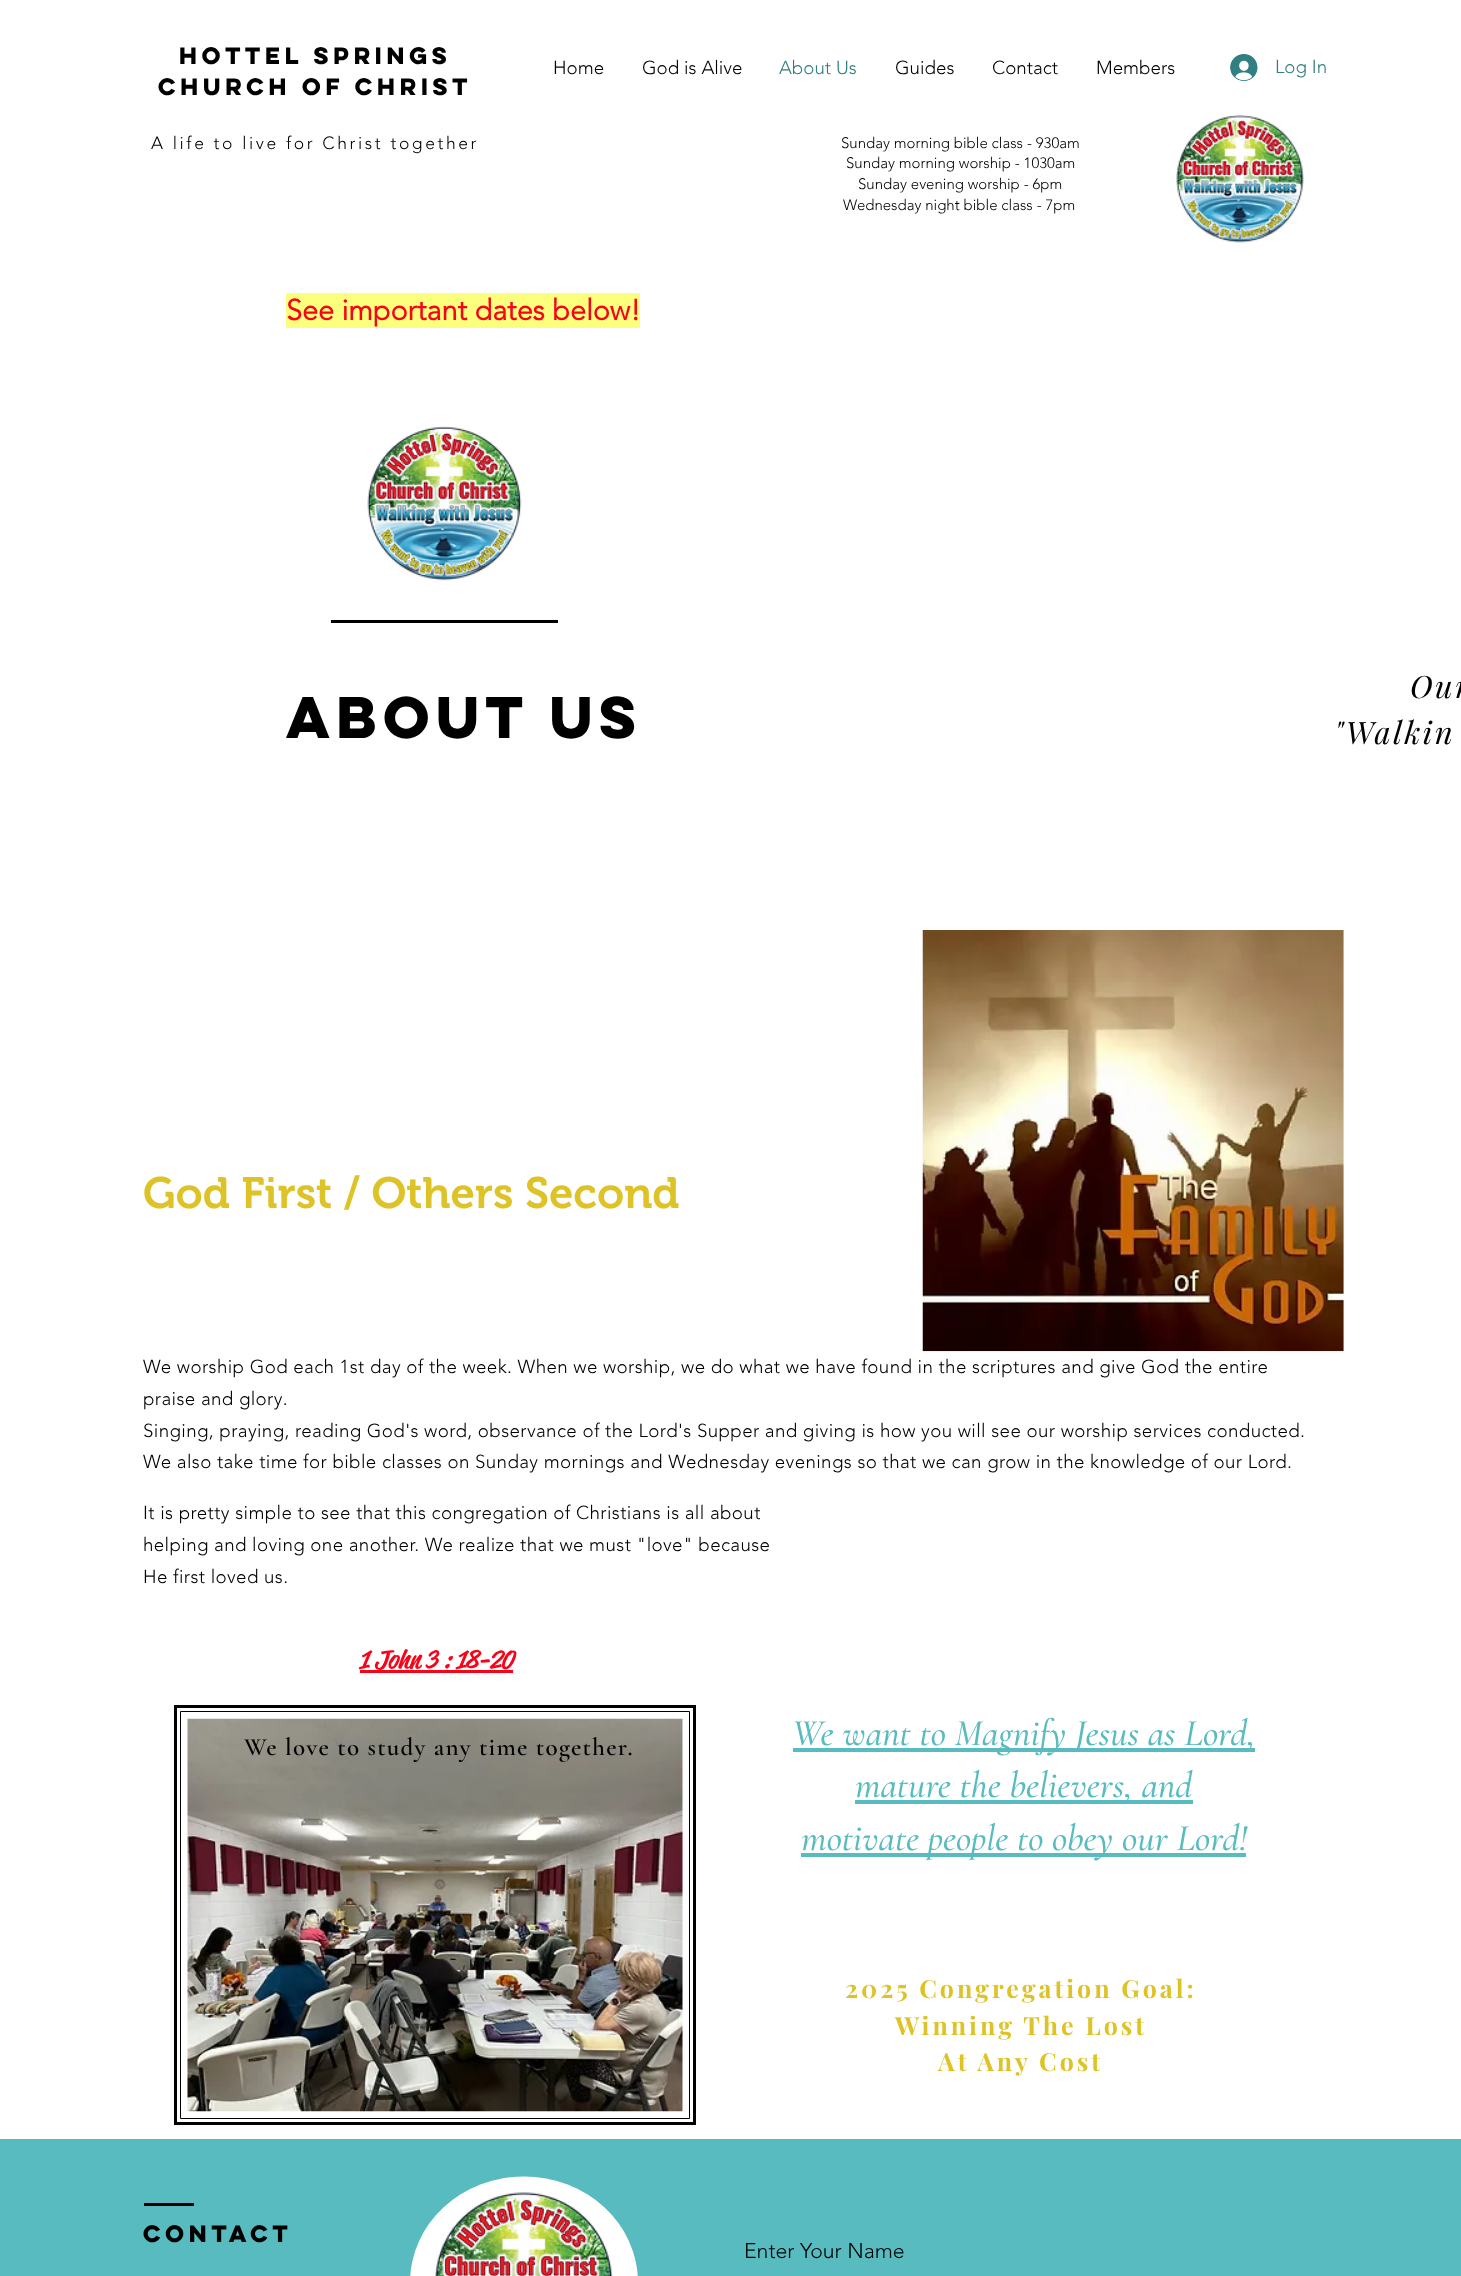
<svg xmlns="http://www.w3.org/2000/svg" width="1461" height="2276" viewBox="0 0 1461 2276">
  <rect width="100%" height="100%" fill="#fff"/>
  <image x="1230" y="54" width="28" height="27" href="img/1.png"/>
  <image x="1176" y="115" width="128" height="128" href="img/2.png"/>
  <path d="M286 293h354v35H286z" fill="#fcff7d"/>
  <image x="367" y="426" width="155" height="155" href="img/3.png"/>
  <path d="M331 620h227v3H331z" fill="#000"/>
  <image x="922" y="930" width="422" height="422" href="img/4.png"/>
  <path d="M360 1670h153v3H360z" fill="#f60419"/>
  <path d="M175.5 1706.5h519v417H175.5z" fill="none" stroke="#000" stroke-width="3"/>
  <image x="187" y="1718" width="496" height="394" href="img/5.png"/>
  <path d="M180.5 1711.5h509v407H180.5z" fill="none" stroke="#000"/>
  <path d="M793 1748h462v4H793z" fill="#57bbbf"/>
  <path d="M855 1800h338v4H855z" fill="#57bbbf"/>
  <path d="M801 1853h445v4H801z" fill="#57bbbf"/>
  <path d="M0 2139h1461v137H0z" fill="#57bbbf"/>
  <path d="M144 2203h50v3H144z" fill="#000"/>
  <ellipse cx="524" cy="2282.5" rx="114" ry="106" fill="#fff"/>
  <image x="435" y="2192" width="178" height="84" href="img/6.png"/>
  <g font-family="'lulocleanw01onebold'" font-size="21.25" font-weight="bold" fill="#000">
    <text x="179" y="64">Hottel Springs</text>
    <text x="158" y="95">Church of Christ</text>
  </g>
  <g font-family="'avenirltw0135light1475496'" font-size="18.75" font-weight="300" fill="#000">
    <text x="553" y="74">Home</text>
    <text x="642" y="74">God is Alive</text>
  </g>
  <text x="779" y="74" font-family="'avenirltw0135light1475496'" font-size="18.75" font-weight="300" fill="#317f81">About Us</text>
  <g font-family="'avenirltw0135light1475496'" font-size="18.75" font-weight="300" fill="#000">
    <text x="895" y="74">Guides</text>
    <text x="992" y="74">Contact</text>
    <text x="1096" y="74">Members</text>
  </g>
  <text x="1275" y="73" font-family="'avenirltw0135light1475496'" font-size="18.75" font-weight="300" fill="#317f81">Log In</text>
  <text x="151" y="149" font-family="'avenirltw0135light1475496'" font-size="17.5" font-weight="300" letter-spacing="2.6" fill="#000">A life to live for Christ together</text>
  <g font-family="'avenirltw0135light1475496'" font-size="15" font-weight="300" fill="#000">
    <text x="841" y="148">Sunday morning bible class - 930am</text>
    <text x="846" y="168">Sunday morning worship - 1030am</text>
    <text x="858" y="189">Sunday evening worship - 6pm</text>
    <text x="843" y="210">Wednesday night bible class - 7pm</text>
  </g>
  <text x="286" y="320" font-family="'avenirltw0135light1475496'" font-size="28.75" font-weight="bold" fill="#f60419">See important dates below!</text>
  <text x="286" y="738" font-family="'lulocleanw01onebold'" font-size="52.5" font-weight="bold" letter-spacing="-5.25" fill="#000">ABOUT Us</text>
  <g font-family="Playfair Display" font-size="31" font-style="italic" letter-spacing="2.5" fill="#000">
    <text x="1410" y="698">Our</text>
    <text x="1334" y="744">"Walkin</text>
  </g>
  <text x="143" y="1208" font-family="'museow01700'" font-size="43.75" font-weight="600" fill="#dec328">God First / Others Second</text>
  <g font-family="'avenirltw0135light1475496'" font-size="18.75" font-weight="300" letter-spacing="0.38" fill="#000">
    <text x="143" y="1373">We worship God each 1st day of the week. When we worship, we do what we have found in the scriptures and give God the entire</text>
    <text x="143" y="1405">praise and glory.</text>
    <text x="143" y="1437">Singing, praying, reading God's word, observance of the Lord's Supper and giving is how you will see our worship services conducted.</text>
    <text x="143" y="1468">We also take time for bible classes on Sunday mornings and Wednesday evenings so that we can grow in the knowledge of our Lord.</text>
    <text x="143" y="1519">It is pretty simple to see that this congregation of Christians is all about</text>
    <text x="143" y="1551">helping and loving one another. We realize that we must "love" because</text>
    <text x="143" y="1583">He first loved us.</text>
  </g>
  <text x="359" y="1668" font-family="'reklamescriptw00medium'" font-size="25" font-weight="500" font-style="italic" fill="#f60419">1 John 3 : 18-20</text>
  <g font-family="Cormorant Garamond" font-size="37.5" font-weight="500" font-style="italic" fill="#57bbbf">
    <text x="792" y="1745">We want to Magnify Jesus as Lord,</text>
    <text x="855" y="1797">mature the believers, and</text>
    <text x="801" y="1850">motivate people to obey our Lord!</text>
  </g>
  <text x="244" y="1755" font-family="Cormorant Garamond" font-size="25" font-weight="600" letter-spacing="1.25" fill="#000">We love to study any time together.</text>
  <g font-family="Playfair Display" font-size="25" font-weight="bold" letter-spacing="3" fill="#dec328">
    <text x="845" y="1998">2025 Congregation Goal:</text>
    <text x="895" y="2035">Winning The Lost</text>
    <text x="938" y="2071">At Any Cost</text>
  </g>
  <text x="143" y="2242" font-family="'lulocleanw01onebold'" font-size="21.25" font-weight="bold" fill="#000">Contact</text>
  <text x="744" y="2258" font-family="'avenirltw0135light1475496'" font-size="21.25" font-weight="300" fill="#000">Enter Your Name</text>
</svg>
